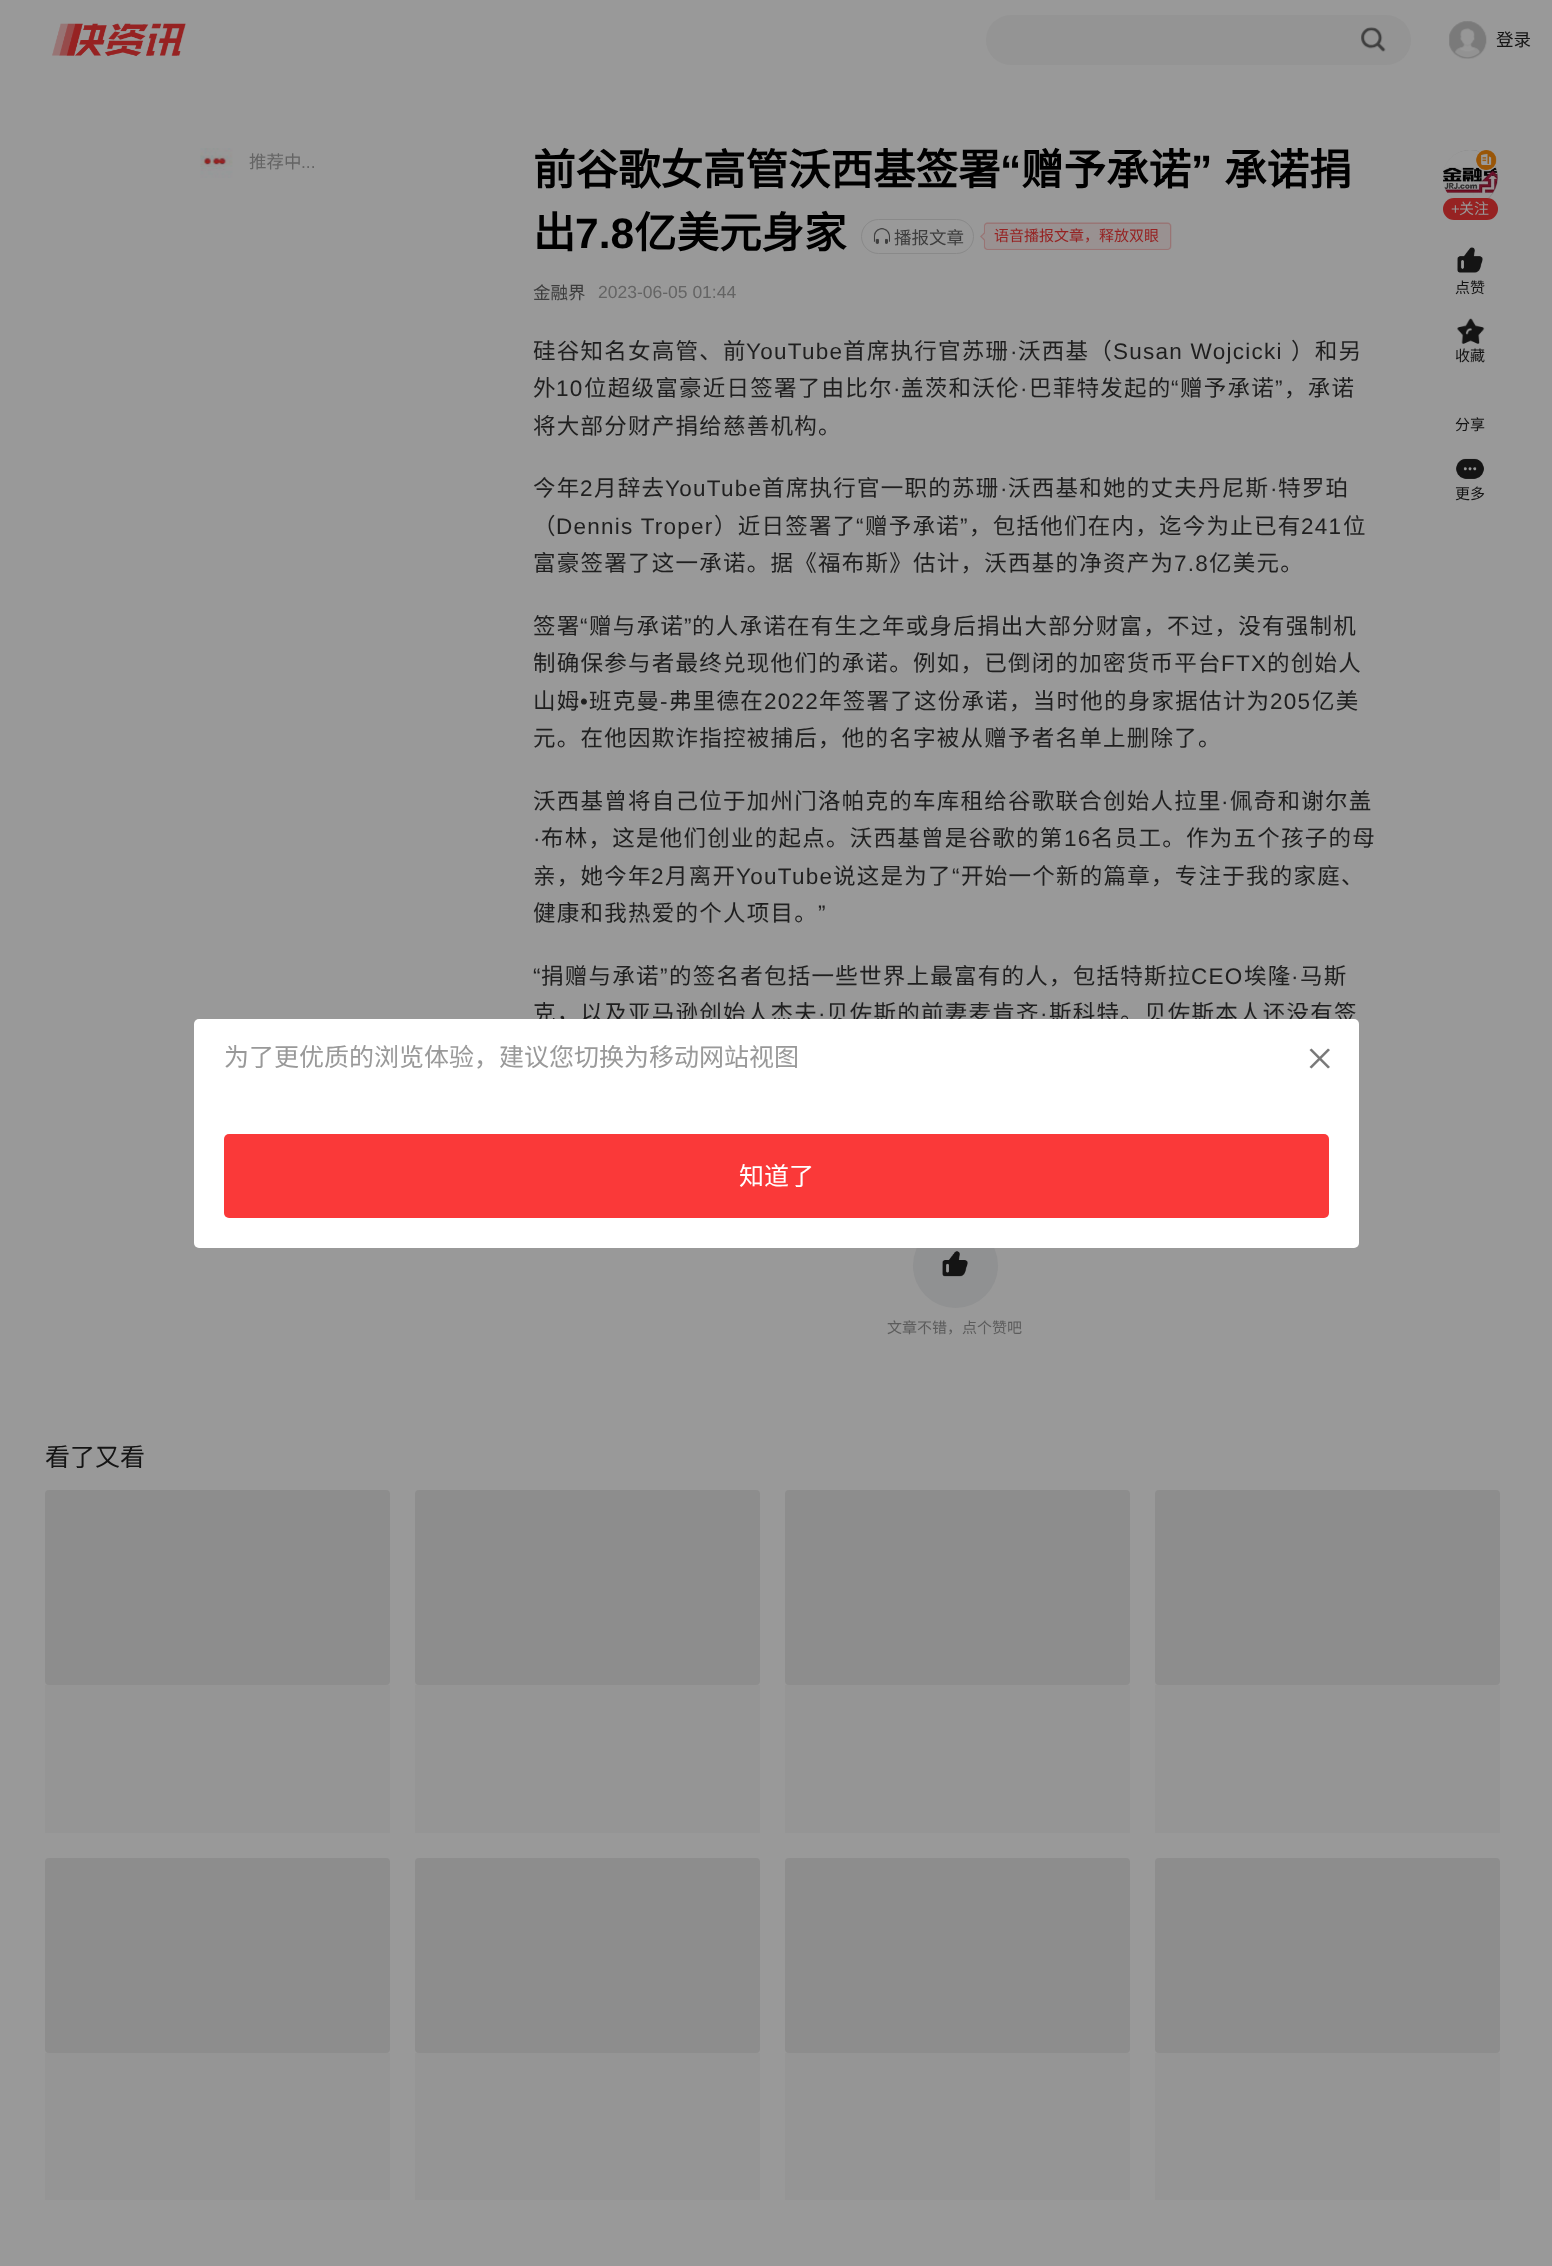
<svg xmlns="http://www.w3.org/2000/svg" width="1552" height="2266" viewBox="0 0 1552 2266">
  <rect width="100%" height="100%" fill="#999"/>
  <image x="52" y="23" width="134" height="34" href="img/1.png"/>
  <rect x="986" y="15" width="425" height="50" rx="25" fill="#949494"/>
  <image x="1361" y="27" width="25" height="25" href="img/2.png"/>
  <image x="1449" y="21" width="38" height="38" href="img/3.png"/>
  <image x="200" y="148" width="33" height="30" href="img/4.png"/>
  <image x="873" y="228" width="17" height="16" href="img/5.png"/>
  <rect x="861.5" y="219.5" width="112" height="34" rx="17" fill="none" stroke="#898989"/>
  <image x="980" y="222" width="192" height="28" href="img/6.png"/>
  <circle cx="955.5" cy="1265.5" r="42.5" fill="#909192"/>
  <image x="942" y="1251" width="26" height="26" href="img/7.png"/>
  <circle cx="1470.5" cy="177.5" r="26" fill="none" stroke="#7a7a7a" stroke-width="3"/>
  <image x="1443" y="150" width="55" height="49" href="img/8.png"/>
  <image x="1476" y="150" width="21" height="22" href="img/9.png"/>
  <rect x="1443" y="198" width="55" height="22" rx="11" fill="#962222"/>
  <image x="1457" y="247" width="26" height="26" href="img/10.png"/>
  <image x="1457" y="318" width="28" height="26" href="img/11.png"/>
  <image x="1456" y="458" width="28" height="21" href="img/12.png"/>
  <rect x="45" y="1490" width="345" height="195" rx="4" fill="#8d8d8d"/>
  <path d="M45 1685h345v148H45z" fill="#959595"/>
  <rect x="415" y="1490" width="345" height="195" rx="4" fill="#8d8d8d"/>
  <path d="M415 1685h345v148H415z" fill="#959595"/>
  <rect x="785" y="1490" width="345" height="195" rx="4" fill="#8d8d8d"/>
  <path d="M785 1685h345v148H785z" fill="#959595"/>
  <rect x="1155" y="1490" width="345" height="195" rx="4" fill="#8d8d8d"/>
  <path d="M1155 1685h345v148H1155z" fill="#959595"/>
  <rect x="45" y="1858" width="345" height="195" rx="4" fill="#8d8d8d"/>
  <path d="M45 2053h345v147H45z" fill="#959595"/>
  <rect x="415" y="1858" width="345" height="195" rx="4" fill="#8d8d8d"/>
  <path d="M415 2053h345v147H415z" fill="#959595"/>
  <rect x="785" y="1858" width="345" height="195" rx="4" fill="#8d8d8d"/>
  <path d="M785 2053h345v147H785z" fill="#959595"/>
  <rect x="1155" y="1858" width="345" height="195" rx="4" fill="#8d8d8d"/>
  <path d="M1155 2053h345v147H1155z" fill="#959595"/>
  <text x="1496" y="46" font-family="Noto Sans CJK SC" font-size="17.5" fill="#141414">登录</text>
  <text x="249" y="168" font-family="Noto Sans CJK SC" font-size="17.5" fill="#646464">推荐中</text>
  <text x="301" y="168" font-family="Liberation Sans" font-size="17.5" fill="#646464">...</text>
  <text x="533" y="185" font-family="Noto Sans CJK SC" font-size="42.5" font-weight="bold" fill="#000">前谷歌女高管沃西基签署</text>
  <text x="1000" y="185" font-family="Liberation Sans" font-size="42.5" font-weight="bold" fill="#000">“</text>
  <text x="1021" y="185" font-family="Noto Sans CJK SC" font-size="42.5" font-weight="bold" fill="#000">赠予承诺</text>
  <text x="1191" y="185" font-family="Liberation Sans" font-size="42.5" font-weight="bold" fill="#000">”</text>
  <g font-family="Noto Sans CJK SC" font-size="42.5" font-weight="bold" fill="#000">
    <text x="1224" y="185">承诺捐</text>
    <text x="533" y="248">出</text>
  </g>
  <text x="575" y="248" font-family="Liberation Sans" font-size="42.5" font-weight="bold" fill="#000">7.8</text>
  <text x="634" y="248" font-family="Noto Sans CJK SC" font-size="42.5" font-weight="bold" fill="#000">亿美元身家</text>
  <text x="894" y="244" font-family="Noto Sans CJK SC" font-size="17.5" fill="#3d3d3d">播报文章</text>
  <text x="994" y="241" font-family="Noto Sans CJK SC" font-size="15" fill="#962222">语音播报文章，释放双眼</text>
  <text x="533" y="299" font-family="Noto Sans CJK SC" font-size="17.5" fill="#3d3d3d">金融界</text>
  <text x="598" y="298" font-family="Liberation Sans" font-size="17.5" fill="#646464">2023-06-05 01:44</text>
  <text x="533" y="359" font-family="Noto Sans CJK SC" font-size="22.5" letter-spacing="1.25" fill="#1f1f1f">硅谷知名女高管、前</text>
  <text x="746" y="359" font-family="Liberation Sans" font-size="22.5" letter-spacing="1.25" fill="#1f1f1f">YouTube</text>
  <text x="843" y="359" font-family="Noto Sans CJK SC" font-size="22.5" letter-spacing="1.25" fill="#1f1f1f">首席执行官苏珊</text>
  <text x="1010" y="359" font-family="Liberation Sans" font-size="22.5" letter-spacing="1.25" fill="#1f1f1f">·</text>
  <text x="1018" y="359" font-family="Noto Sans CJK SC" font-size="22.5" letter-spacing="1.25" fill="#1f1f1f">沃西基（</text>
  <text x="1113" y="359" font-family="Liberation Sans" font-size="22.5" letter-spacing="1.25" fill="#1f1f1f">Susan Wojcicki</text>
  <g font-family="Noto Sans CJK SC" font-size="22.5" letter-spacing="1.25" fill="#1f1f1f">
    <text x="1291" y="359">）和另</text>
    <text x="533" y="396">外</text>
  </g>
  <text x="556" y="396" font-family="Liberation Sans" font-size="22.5" letter-spacing="1.25" fill="#1f1f1f">10</text>
  <g font-family="Noto Sans CJK SC" font-size="22.5" letter-spacing="1.25" fill="#1f1f1f">
    <text x="584" y="396">位超级富豪近日签署了由比尔</text>
    <text x="901" y="396">盖茨和沃伦</text>
    <text x="1029" y="396">巴菲特发起的</text>
  </g>
  <text x="1171" y="396" font-family="Liberation Sans" font-size="22.5" letter-spacing="1.25" fill="#1f1f1f">“</text>
  <text x="1180" y="396" font-family="Noto Sans CJK SC" font-size="22.5" letter-spacing="1.25" fill="#1f1f1f">赠予承诺</text>
  <text x="1275" y="396" font-family="Liberation Sans" font-size="22.5" letter-spacing="1.25" fill="#1f1f1f">”</text>
  <text x="1284" y="396" font-family="Noto Sans CJK SC" font-size="22.5" letter-spacing="1.25" fill="#1f1f1f">，承诺</text>
  <g font-family="Liberation Sans" font-size="22.5" letter-spacing="1.25" fill="#1f1f1f">
    <text x="893" y="396">·</text>
    <text x="1020" y="396">·</text>
  </g>
  <g font-family="Noto Sans CJK SC" font-size="22.5" letter-spacing="1.25" fill="#1f1f1f">
    <text x="533" y="434">将大部分财产捐给慈善机构。</text>
    <text x="533" y="496">今年</text>
  </g>
  <text x="580" y="496" font-family="Liberation Sans" font-size="22.5" letter-spacing="1.25" fill="#1f1f1f">2</text>
  <text x="594" y="496" font-family="Noto Sans CJK SC" font-size="22.5" letter-spacing="1.25" fill="#1f1f1f">月辞去</text>
  <text x="665" y="496" font-family="Liberation Sans" font-size="22.5" letter-spacing="1.25" fill="#1f1f1f">YouTube</text>
  <text x="762" y="496" font-family="Noto Sans CJK SC" font-size="22.5" letter-spacing="1.25" fill="#1f1f1f">首席执行官一职的苏珊</text>
  <text x="1000" y="496" font-family="Liberation Sans" font-size="22.5" letter-spacing="1.25" fill="#1f1f1f">·</text>
  <text x="1008" y="496" font-family="Noto Sans CJK SC" font-size="22.5" letter-spacing="1.25" fill="#1f1f1f">沃西基和她的丈夫丹尼斯</text>
  <text x="1270" y="496" font-family="Liberation Sans" font-size="22.5" letter-spacing="1.25" fill="#1f1f1f">·</text>
  <g font-family="Noto Sans CJK SC" font-size="22.5" letter-spacing="1.25" fill="#1f1f1f">
    <text x="1278" y="496">特罗珀</text>
    <text x="533" y="534">（</text>
  </g>
  <text x="556" y="534" font-family="Liberation Sans" font-size="22.5" letter-spacing="1.25" fill="#1f1f1f">Dennis Troper</text>
  <text x="714" y="534" font-family="Noto Sans CJK SC" font-size="22.5" letter-spacing="1.25" fill="#1f1f1f">）近日签署了</text>
  <text x="856" y="534" font-family="Liberation Sans" font-size="22.5" letter-spacing="1.25" fill="#1f1f1f">“</text>
  <text x="865" y="534" font-family="Noto Sans CJK SC" font-size="22.5" letter-spacing="1.25" fill="#1f1f1f">赠予承诺</text>
  <text x="960" y="534" font-family="Liberation Sans" font-size="22.5" letter-spacing="1.25" fill="#1f1f1f">”</text>
  <text x="969" y="534" font-family="Noto Sans CJK SC" font-size="22.5" letter-spacing="1.25" fill="#1f1f1f">，包括他们在内，迄今为止已有</text>
  <text x="1301" y="534" font-family="Liberation Sans" font-size="22.5" letter-spacing="1.25" fill="#1f1f1f">241</text>
  <g font-family="Noto Sans CJK SC" font-size="22.5" letter-spacing="1.25" fill="#1f1f1f">
    <text x="1343" y="534">位</text>
    <text x="533" y="571">富豪签署了这一承诺。据《福布斯》估计，沃西基的净资产为</text>
  </g>
  <text x="1174" y="571" font-family="Liberation Sans" font-size="22.5" letter-spacing="1.25" fill="#1f1f1f">7.8</text>
  <g font-family="Noto Sans CJK SC" font-size="22.5" letter-spacing="1.25" fill="#1f1f1f">
    <text x="1209" y="571">亿美元。</text>
    <text x="533" y="634">签署</text>
  </g>
  <text x="580" y="634" font-family="Liberation Sans" font-size="22.5" letter-spacing="1.25" fill="#1f1f1f">“</text>
  <text x="589" y="634" font-family="Noto Sans CJK SC" font-size="22.5" letter-spacing="1.25" fill="#1f1f1f">赠与承诺</text>
  <text x="684" y="634" font-family="Liberation Sans" font-size="22.5" letter-spacing="1.25" fill="#1f1f1f">”</text>
  <g font-family="Noto Sans CJK SC" font-size="22.5" letter-spacing="1.25" fill="#1f1f1f">
    <text x="692" y="634">的人承诺在有生之年或身后捐出大部分财富，不过，没有强制机</text>
    <text x="533" y="671">制确保参与者最终兑现他们的承诺。例如，已倒闭的加密货币平台</text>
  </g>
  <text x="1221" y="671" font-family="Liberation Sans" font-size="22.5" letter-spacing="1.25" fill="#1f1f1f">FTX</text>
  <g font-family="Noto Sans CJK SC" font-size="22.5" letter-spacing="1.25" fill="#1f1f1f">
    <text x="1267" y="671">的创始人</text>
    <text x="533" y="709">山姆</text>
  </g>
  <text x="580" y="709" font-family="Liberation Sans" font-size="22.5" letter-spacing="1.25" fill="#1f1f1f">•</text>
  <text x="589" y="709" font-family="Noto Sans CJK SC" font-size="22.5" letter-spacing="1.25" fill="#1f1f1f">班克曼</text>
  <text x="660" y="709" font-family="Liberation Sans" font-size="22.5" letter-spacing="1.25" fill="#1f1f1f">-</text>
  <text x="669" y="709" font-family="Noto Sans CJK SC" font-size="22.5" letter-spacing="1.25" fill="#1f1f1f">弗里德在</text>
  <text x="764" y="709" font-family="Liberation Sans" font-size="22.5" letter-spacing="1.25" fill="#1f1f1f">2022</text>
  <text x="819" y="709" font-family="Noto Sans CJK SC" font-size="22.5" letter-spacing="1.25" fill="#1f1f1f">年签署了这份承诺，当时他的身家据估计为</text>
  <text x="1270" y="709" font-family="Liberation Sans" font-size="22.5" letter-spacing="1.25" fill="#1f1f1f">205</text>
  <g font-family="Noto Sans CJK SC" font-size="22.5" letter-spacing="1.25" fill="#1f1f1f">
    <text x="1312" y="709">亿美</text>
    <text x="533" y="746">元。在他因欺诈指控被捕后，他的名字被从赠予者名单上删除了。</text>
    <text x="533" y="809">沃西基曾将自己位于加州门洛帕克的车库租给谷歌联合创始人拉里</text>
  </g>
  <text x="1221" y="809" font-family="Liberation Sans" font-size="22.5" letter-spacing="1.25" fill="#1f1f1f">·</text>
  <text x="1230" y="809" font-family="Noto Sans CJK SC" font-size="22.5" letter-spacing="1.25" fill="#1f1f1f">佩奇和谢尔盖</text>
  <text x="533" y="846" font-family="Liberation Sans" font-size="22.5" letter-spacing="1.25" fill="#1f1f1f">·</text>
  <text x="541" y="846" font-family="Noto Sans CJK SC" font-size="22.5" letter-spacing="1.25" fill="#1f1f1f">布林，这是他们创业的起点。沃西基曾是谷歌的第</text>
  <text x="1064" y="846" font-family="Liberation Sans" font-size="22.5" letter-spacing="1.25" fill="#1f1f1f">16</text>
  <g font-family="Noto Sans CJK SC" font-size="22.5" letter-spacing="1.25" fill="#1f1f1f">
    <text x="1091" y="846">名员工。作为五个孩子的母</text>
    <text x="533" y="884">亲，她今年</text>
  </g>
  <text x="651" y="884" font-family="Liberation Sans" font-size="22.5" letter-spacing="1.25" fill="#1f1f1f">2</text>
  <text x="665" y="884" font-family="Noto Sans CJK SC" font-size="22.5" letter-spacing="1.25" fill="#1f1f1f">月离开</text>
  <text x="736" y="884" font-family="Liberation Sans" font-size="22.5" letter-spacing="1.25" fill="#1f1f1f">YouTube</text>
  <text x="833" y="884" font-family="Noto Sans CJK SC" font-size="22.5" letter-spacing="1.25" fill="#1f1f1f">说这是为了</text>
  <text x="952" y="884" font-family="Liberation Sans" font-size="22.5" letter-spacing="1.25" fill="#1f1f1f">“</text>
  <g font-family="Noto Sans CJK SC" font-size="22.5" letter-spacing="1.25" fill="#1f1f1f">
    <text x="961" y="884">开始一个新的篇章，专注于我的家庭、</text>
    <text x="533" y="921">健康和我热爱的个人项目。</text>
  </g>
  <g font-family="Liberation Sans" font-size="22.5" letter-spacing="1.25" fill="#1f1f1f">
    <text x="818" y="921">”</text>
    <text x="533" y="984">“</text>
  </g>
  <text x="541" y="984" font-family="Noto Sans CJK SC" font-size="22.5" letter-spacing="1.25" fill="#1f1f1f">捐赠与承诺</text>
  <text x="660" y="984" font-family="Liberation Sans" font-size="22.5" letter-spacing="1.25" fill="#1f1f1f">”</text>
  <text x="669" y="984" font-family="Noto Sans CJK SC" font-size="22.5" letter-spacing="1.25" fill="#1f1f1f">的签名者包括一些世界上最富有的人，包括特斯拉</text>
  <text x="1191" y="984" font-family="Liberation Sans" font-size="22.5" letter-spacing="1.25" fill="#1f1f1f">CEO</text>
  <text x="1244" y="984" font-family="Noto Sans CJK SC" font-size="22.5" letter-spacing="1.25" fill="#1f1f1f">埃隆</text>
  <text x="1291" y="984" font-family="Liberation Sans" font-size="22.5" letter-spacing="1.25" fill="#1f1f1f">·</text>
  <g font-family="Noto Sans CJK SC" font-size="22.5" letter-spacing="1.25" fill="#1f1f1f">
    <text x="1300" y="984">马斯</text>
    <text x="533" y="1021">克，以及亚马逊创始人杰夫</text>
  </g>
  <text x="818" y="1021" font-family="Liberation Sans" font-size="22.5" letter-spacing="1.25" fill="#1f1f1f">·</text>
  <text x="826" y="1021" font-family="Noto Sans CJK SC" font-size="22.5" letter-spacing="1.25" fill="#1f1f1f">贝佐斯的前妻麦肯齐</text>
  <text x="1040" y="1021" font-family="Liberation Sans" font-size="22.5" letter-spacing="1.25" fill="#1f1f1f">·</text>
  <text x="1049" y="1021" font-family="Noto Sans CJK SC" font-size="22.5" letter-spacing="1.25" fill="#1f1f1f">斯科特。贝佐斯本人还没有签</text>
  <text x="887" y="1333" font-family="Noto Sans CJK SC" font-size="15" fill="#5c5c5c">文章不错，点个赞吧</text>
  <text x="1451" y="214" font-family="Liberation Sans" font-size="15" fill="#999">+</text>
  <text x="1459" y="214" font-family="Noto Sans CJK SC" font-size="15" fill="#999">关注</text>
  <g font-family="Noto Sans CJK SC" font-size="15" fill="#141414">
    <text x="1455" y="293">点赞</text>
    <text x="1455" y="361">收藏</text>
    <text x="1455" y="430">分享</text>
    <text x="1455" y="499">更多</text>
  </g>
  <text x="45" y="1466" font-family="Noto Sans CJK SC" font-size="25" fill="#141414">看了又看</text>
  <rect x="194" y="1019" width="1165" height="229" rx="5" fill="#fff"/>
  <text x="224" y="1066" font-family="Noto Sans CJK SC" font-size="25" fill="#999">为了更优质的浏览体验，建议您切换为移动网站视图</text>
  <path d="M1311.5 1048.5L1330 1067L1328 1068.5L1309.5 1050Z" fill="#797979"/>
  <path d="M1309.5 1067L1328 1048.5L1330 1050L1311.5 1068.5Z" fill="#797979"/>
  <rect x="224" y="1134" width="1105" height="84" rx="5" fill="#fa3939"/>
  <text x="739" y="1185" font-family="Noto Sans CJK SC" font-size="25" fill="#fff">知道了</text>
</svg>
